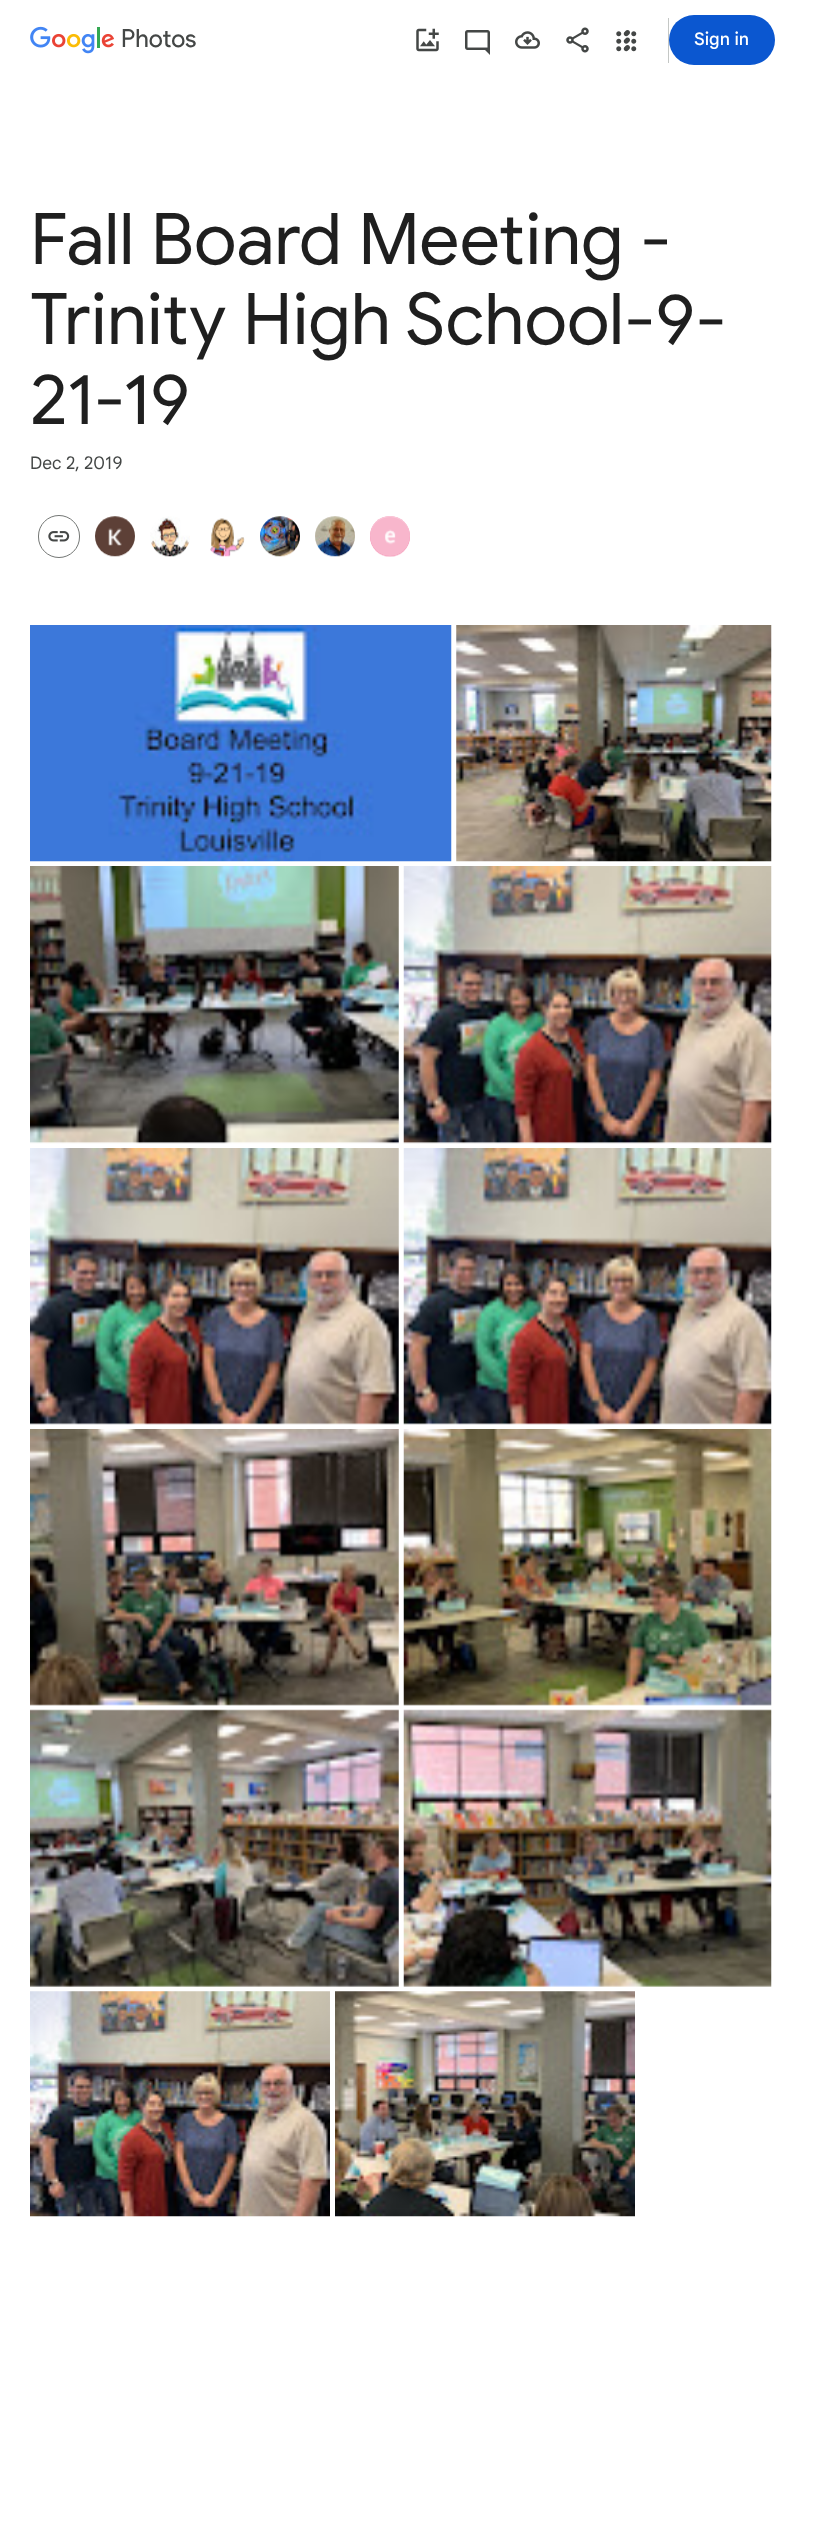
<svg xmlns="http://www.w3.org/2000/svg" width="820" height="2524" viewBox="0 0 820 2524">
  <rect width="100%" height="100%" fill="#fff"/>
  <image x="30" y="26" width="84" height="28" href="img/1.png"/>
  <image x="416" y="28" width="23" height="24" href="img/2.png"/>
  <image x="465" y="30" width="25" height="25" href="img/3.png"/>
  <image x="515" y="31" width="25" height="18" href="img/4.png"/>
  <image x="566" y="27" width="23" height="26" href="img/5.png"/>
  <image x="625" y="30" width="5" height="20" href="img/6.png"/>
  <path d="M668 18h1v45H668z" fill="#c4c7c5"/>
  <rect x="38.5" y="515.5" width="41" height="42" rx="20.5" fill="none" stroke="#747775"/>
  <image x="48" y="531" width="22" height="11" href="img/7.png"/>
  <image x="95" y="516" width="40" height="41" href="img/8.png"/>
  <image x="150" y="516" width="40" height="41" href="img/9.png"/>
  <image x="210" y="518" width="35" height="39" href="img/10.png"/>
  <image x="260" y="516" width="40" height="41" href="img/11.png"/>
  <image x="315" y="516" width="40" height="41" href="img/12.png"/>
  <image x="370" y="516" width="40" height="41" href="img/13.png"/>
  <circle cx="390" cy="536" r="20" fill="#ffffff9e"/>
  <image x="30" y="625" width="422" height="237" href="img/14.png"/>
  <image x="456" y="625" width="316" height="237" href="img/15.png"/>
  <image x="30" y="866" width="369" height="278" href="img/16.png"/>
  <image x="403" y="866" width="369" height="278" href="img/17.png"/>
  <image x="30" y="1148" width="369" height="277" href="img/18.png"/>
  <image x="403" y="1148" width="369" height="277" href="img/19.png"/>
  <image x="30" y="1429" width="369" height="277" href="img/20.png"/>
  <image x="403" y="1429" width="369" height="277" href="img/21.png"/>
  <image x="30" y="1709" width="369" height="278" href="img/22.png"/>
  <image x="403" y="1709" width="369" height="278" href="img/23.png"/>
  <image x="30" y="1991" width="300" height="226" href="img/24.png"/>
  <image x="335" y="1991" width="300" height="226" href="img/25.png"/>
  <image x="616" y="31" width="21" height="21" href="img/26.png"/>
  <rect x="669" y="15" width="106" height="50" rx="25" fill="#0b57d0"/>
  <text x="121" y="47" font-family="Product Sans" font-size="25" fill="#444746">Photos</text>
  <g font-family="Google Sans" font-size="71.25" fill="#1f1f1f">
    <text x="30" y="264">Fall Board Meeting -</text>
    <text x="30" y="344">Trinity High School-9-</text>
    <text x="30" y="424">21-19</text>
  </g>
  <text x="30" y="469" font-family="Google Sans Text" font-size="17.5" fill="#444746">Dec 2, 2019</text>
  <text x="694" y="45" font-family="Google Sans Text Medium" font-size="17.5" font-weight="500" fill="#fff">Sign in</text>
</svg>
